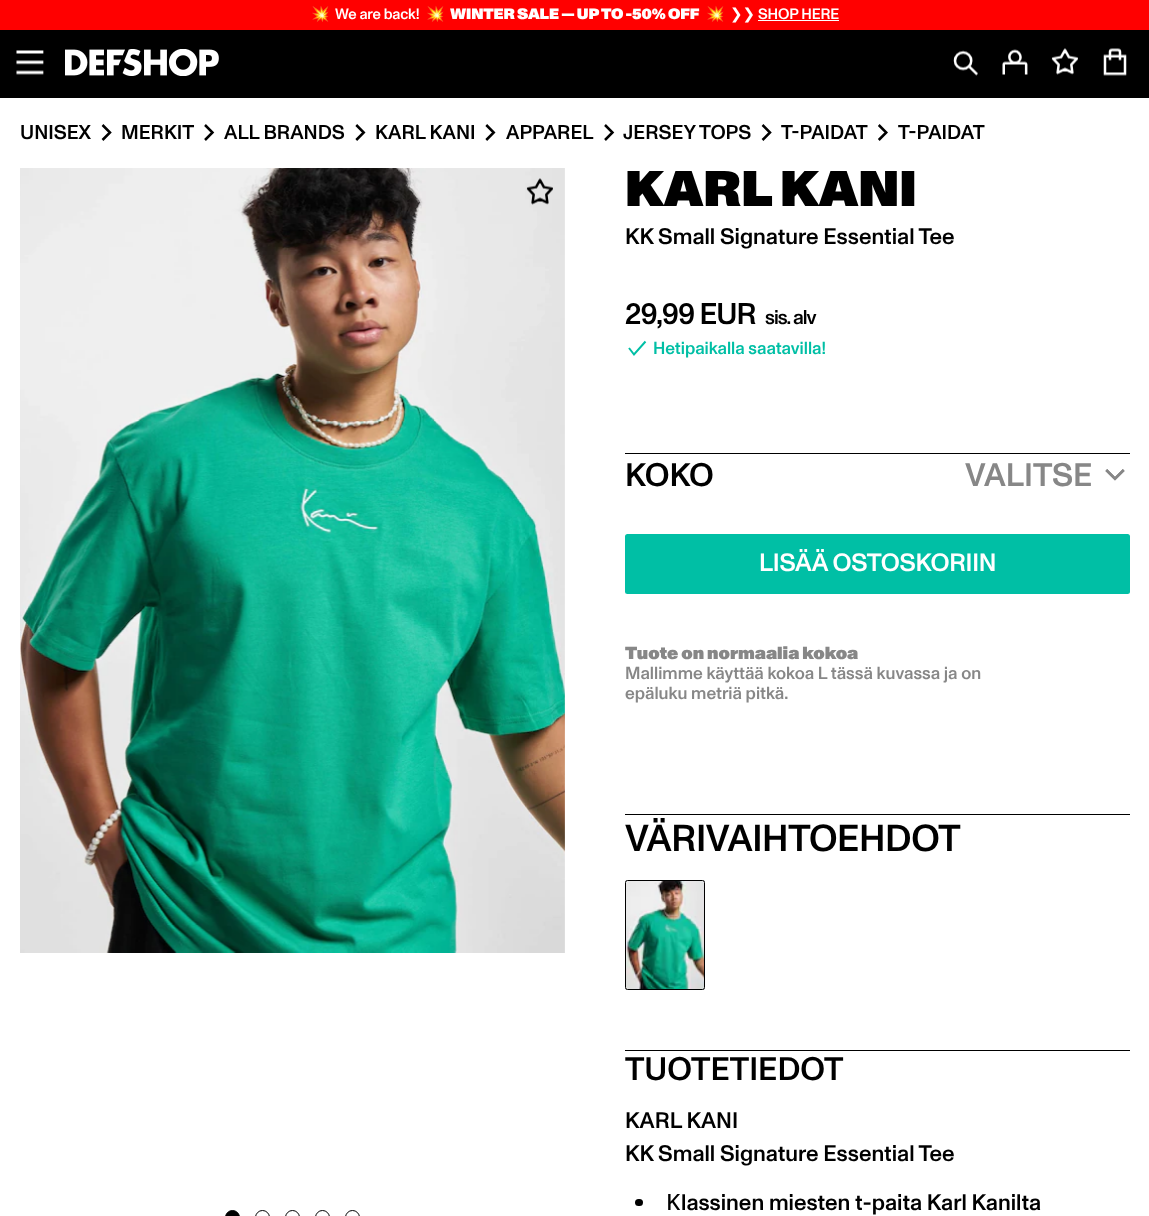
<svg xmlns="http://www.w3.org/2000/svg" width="1149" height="1216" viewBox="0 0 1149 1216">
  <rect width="100%" height="100%" fill="#fff"/>
  <path d="M0 0h1149v30H0z" fill="#f00"/>
  <path d="M758 20h81v1H758z" fill="#fff"/>
  <path d="M0 30h1149v68H0z" fill="#000"/>
  <image x="16" y="50" width="28" height="25" href="img/1.png"/>
  <image x="65" y="49" width="154" height="27" href="img/2.png"/>
  <image x="953" y="50" width="25" height="26" href="img/3.png"/>
  <image x="1002" y="49" width="26" height="26" href="img/4.png"/>
  <image x="1051" y="48" width="27" height="27" href="img/5.png"/>
  <image x="1103" y="48" width="24" height="28" href="img/6.png"/>
  <image x="101" y="124" width="11" height="17" href="img/7.png"/>
  <image x="204" y="124" width="11" height="17" href="img/8.png"/>
  <image x="355" y="124" width="11" height="17" href="img/9.png"/>
  <image x="485" y="124" width="11" height="17" href="img/9.png"/>
  <image x="604" y="124" width="11" height="17" href="img/8.png"/>
  <image x="761" y="124" width="11" height="17" href="img/10.png"/>
  <image x="878" y="124" width="10" height="17" href="img/11.png"/>
  <image x="20" y="168" width="545" height="785" href="img/12.png"/>
  <circle cx="232.5" cy="1217.5" r="7" fill="#000" stroke="#000"/>
  <circle cx="262.5" cy="1217.5" r="7" fill="none" stroke="#000"/>
  <circle cx="292.5" cy="1217.5" r="7" fill="none" stroke="#000"/>
  <circle cx="322.5" cy="1217.5" r="7" fill="none" stroke="#000"/>
  <circle cx="352.5" cy="1217.5" r="7" fill="none" stroke="#000"/>
  <image x="526" y="178" width="27" height="27" href="img/13.png"/>
  <path d="M629 348L634 354.5L645.5 341.5" fill="none" stroke="#00bfa5" stroke-width="2"/>
  <path d="M625 453h505v1H625z" fill="#000"/>
  <image x="1105" y="469" width="20" height="12" href="img/14.png"/>
  <rect x="625" y="534" width="505" height="60" rx="2.5" fill="#00bfa5"/>
  <path d="M625 814h505v1H625z" fill="#000"/>
  <image x="625" y="880" width="80" height="110" href="img/15.png"/>
  <rect x="625.5" y="880.5" width="79" height="109" rx="2" fill="none" stroke="#000"/>
  <path d="M625 1050h505v1H625z" fill="#000"/>
  <rect x="635" y="1199" width="8" height="7" rx="3.5" fill="#000"/>
  <text x="311" y="19" font-family="Noto Color Emoji" font-size="15" letter-spacing="-0.15" fill="#fff">💥</text>
  <text x="335" y="19" font-family="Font" font-size="15" font-weight="500" letter-spacing="-0.15" fill="#fff">We are back!</text>
  <text x="426" y="19" font-family="Noto Color Emoji" font-size="15" letter-spacing="-0.15" fill="#fff">💥</text>
  <text x="450" y="19" font-family="Font" font-size="15" font-weight="900" letter-spacing="-0.15" fill="#fff">WINTER SALE — UP TO -50% OFF</text>
  <text x="706" y="19" font-family="Noto Color Emoji" font-size="15" letter-spacing="-0.15" fill="#fff">💥</text>
  <text x="730" y="19" font-family="DejaVu Sans" font-size="15" letter-spacing="-0.15" fill="#fff">❯❯</text>
  <text x="758" y="19" font-family="Font" font-size="15" font-weight="500" letter-spacing="-0.15" fill="#fff">SHOP HERE</text>
  <g font-family="Font" font-size="20" font-weight="500" fill="#000">
    <text x="20" y="139">UNISEX</text>
    <text x="121" y="139">MERKIT</text>
    <text x="224" y="139">ALL BRANDS</text>
    <text x="375" y="139">KARL KANI</text>
    <text x="506" y="139">APPAREL</text>
    <text x="623" y="139">JERSEY TOPS</text>
    <text x="781" y="139">T-PAIDAT</text>
    <text x="898" y="139">T-PAIDAT</text>
  </g>
  <text x="625" y="206" font-family="Font" font-size="50" font-weight="900" fill="#000">KARL KANI</text>
  <text x="625" y="244" font-family="Font" font-size="22.5" font-weight="500" fill="#000">KK Small Signature Essential Tee</text>
  <text x="625" y="324" font-family="Font" font-size="30" font-weight="500" letter-spacing="-1" fill="#000">29,99 EUR</text>
  <text x="765" y="324" font-family="Font" font-size="20" font-weight="500" letter-spacing="-1" fill="#000">sis. alv</text>
  <text x="653" y="354" font-family="Font" font-size="17.5" font-weight="500" fill="#00bfa5">Hetipaikalla saatavilla!</text>
  <text x="625" y="486" font-family="Font" font-size="32.5" font-weight="500" fill="#000">KOKO</text>
  <text x="965" y="486" font-family="Font" font-size="32.5" font-weight="500" fill="#878787">VALITSE</text>
  <text x="759" y="571" font-family="Font" font-size="25" font-weight="500" letter-spacing="-0.25" fill="#fff">LISÄÄ OSTOSKORIIN</text>
  <text x="625" y="659" font-family="Font" font-size="17.5" font-weight="900" fill="#878787">Tuote on normaalia kokoa</text>
  <g font-family="Font" font-size="17.5" font-weight="500" fill="#878787">
    <text x="625" y="679">Mallimme käyttää kokoa L tässä kuvassa ja on</text>
    <text x="625" y="699">epäluku metriä pitkä.</text>
  </g>
  <text x="625" y="851" font-family="Font" font-size="37.5" font-weight="500" letter-spacing="-0.4" fill="#000">VÄRIVAIHTOEHDOT</text>
  <text x="625" y="1080" font-family="Font" font-size="32.5" font-weight="500" fill="#000">TUOTETIEDOT</text>
  <g font-family="Font" font-size="22.5" font-weight="500" fill="#000">
    <text x="625" y="1128">KARL KANI</text>
    <text x="625" y="1161">KK Small Signature Essential Tee</text>
  </g>
  <text x="666" y="1210" font-family="Noto Sans" font-size="22.5" font-weight="500" fill="#000">K</text>
  <text x="681" y="1210" font-family="Font" font-size="22.5" font-weight="500" fill="#000">lassinen miesten t-paita Karl Kanilta</text>
</svg>
